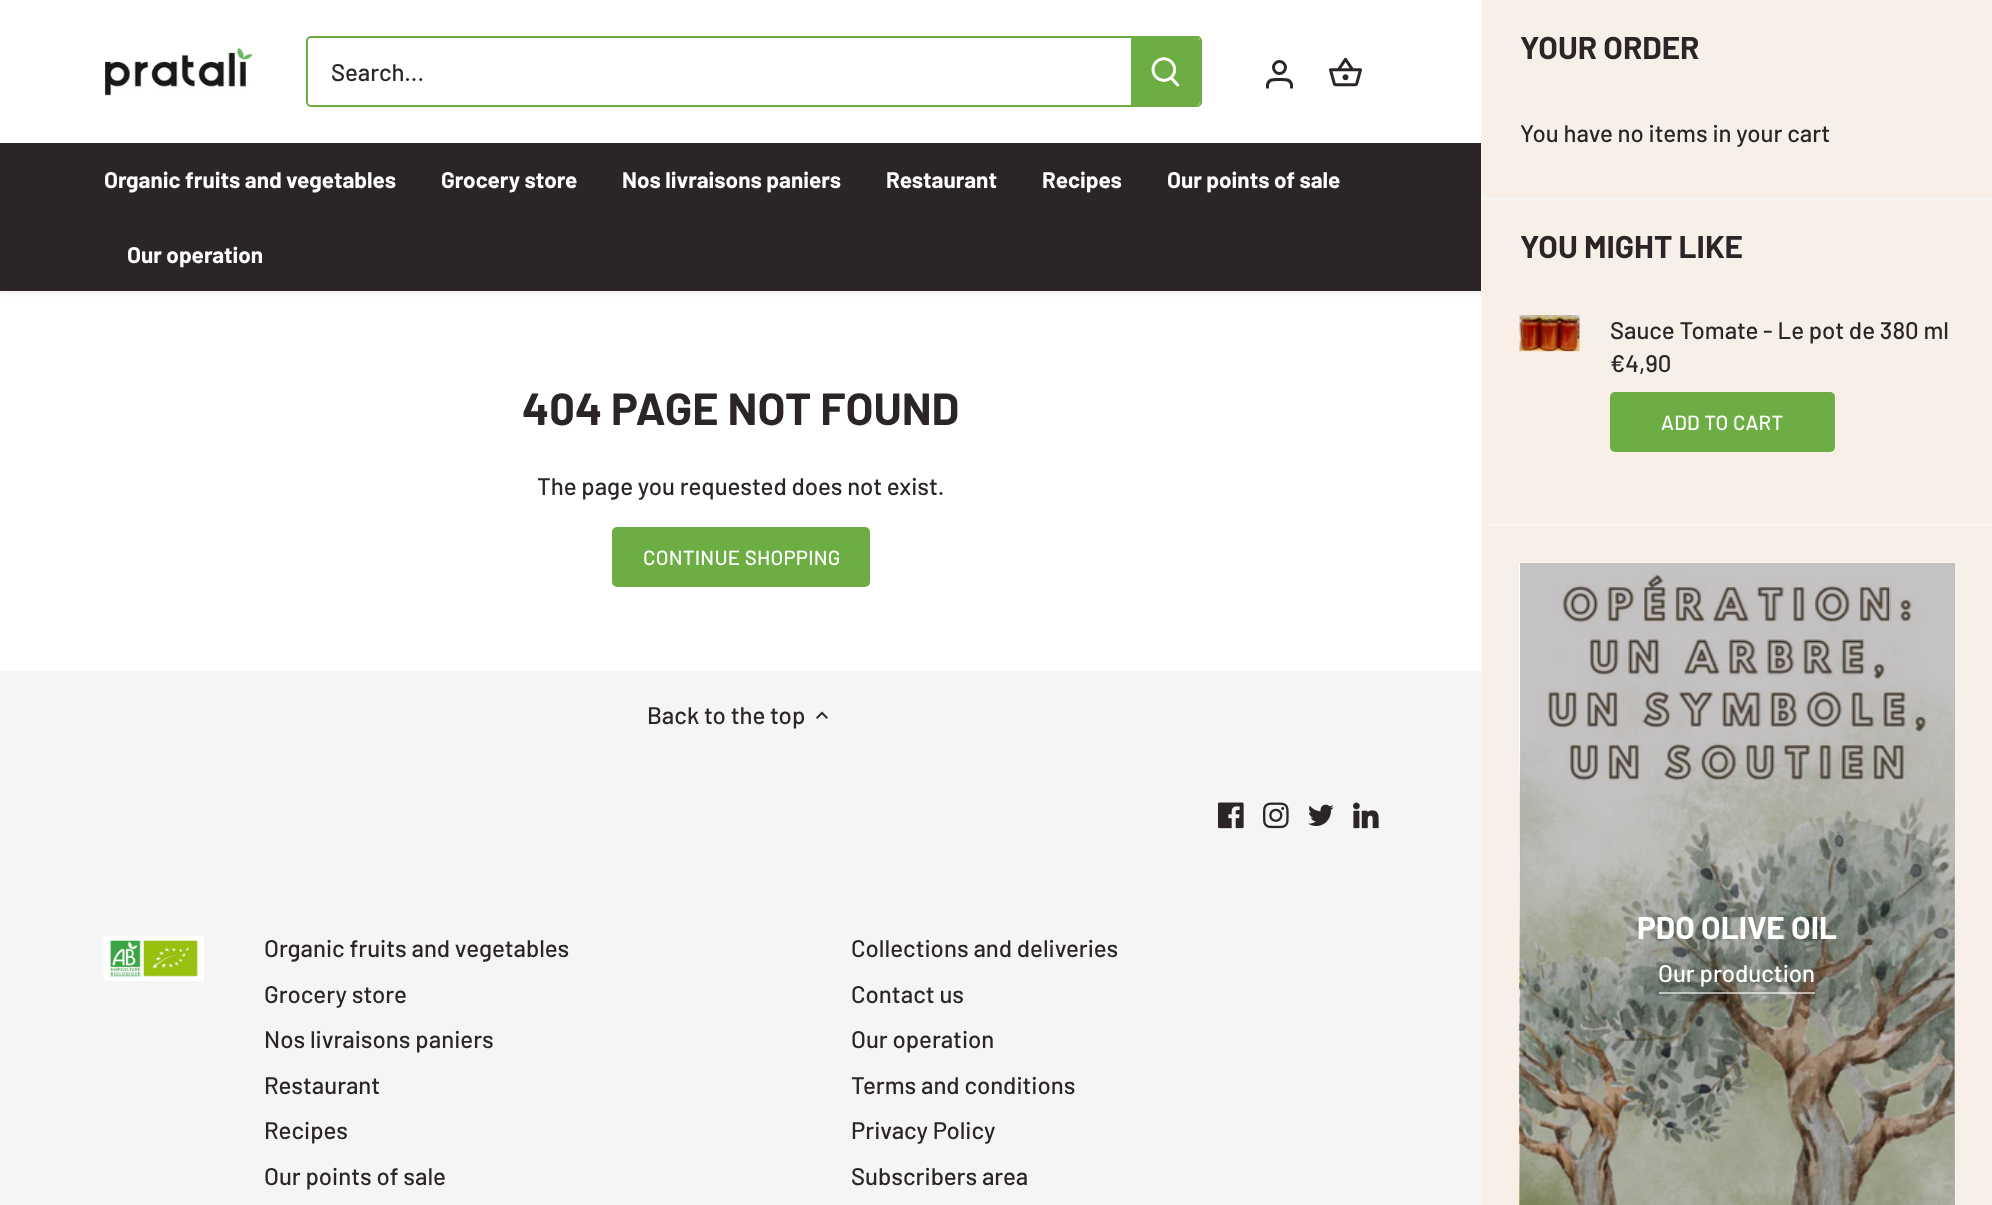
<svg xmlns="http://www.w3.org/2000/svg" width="1992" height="1205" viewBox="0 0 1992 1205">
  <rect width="100%" height="100%" fill="#f5f5f5"/>
  <path d="M0 291h1481v380H0z" fill="#fff"/>
  <path d="M-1 -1h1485v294H-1z" fill="#00000014" filter="blur(2px)"/>
  <path d="M0 143h1481v148H0z" fill="#2c2528"/>
  <path d="M0 0h1481v143H0z" fill="#fff"/>
  <image x="104" y="47" width="149" height="49" href="img/1.png"/>
  <rect x="307" y="37" width="894" height="69" rx="4" fill="none" stroke="#6cae44" stroke-width="2"/>
  <path d="M313 38H1133V105H313C310 105 308 103 308 100V43C308 40 310 38 313 38Z" fill="#fff"/>
  <path d="M1131 38H1197C1198.5 38 1200 39.5 1200 41V102C1200 103.5 1198.5 105 1197 105H1131Z" fill="#6cae44"/>
  <image x="1151" y="57" width="29" height="30" href="img/2.png"/>
  <circle cx="1279.5" cy="67.5" r="6" fill="none" stroke="#2c2528" stroke-width="3"/>
  <path d="M1291.5 88.5V84.5C1290 78.5 1284 79.5 1279.5 79.5C1275 79.5 1269 78.5 1267.5 84.5V88.5" fill="none" stroke="#2c2528" stroke-width="3"/>
  <image x="1329" y="57" width="33" height="30" href="img/3.png"/>
  <rect x="613.5" y="528.5" width="255" height="57" rx="3.5" fill="#6cae44" stroke="#6cae44" stroke-width="3"/>
  <image x="816" y="711" width="12" height="8" href="img/4.png"/>
  <image x="1218" y="802" width="26" height="27" href="img/5.png"/>
  <image x="1263" y="802" width="26" height="27" href="img/6.png"/>
  <image x="1308" y="804" width="26" height="22" href="img/7.png"/>
  <image x="1353" y="802" width="26" height="27" href="img/8.png"/>
  <image x="103" y="936" width="101" height="45" href="img/9.png"/>
  <path d="M1483 0h509v1205H1483z" fill="#f8f0e8"/>
  <path d="M1954 563h1v642H1954z" fill="#bfb7b2"/>
  <path d="M1481 0h2v295H1481z" fill="#f5f5f5"/>
  <path d="M1482 198h510v2H1482z" fill="#f5f5f5"/>
  <image x="1519" y="315" width="61" height="37" href="img/10.png"/>
  <rect x="1611.5" y="393.5" width="222" height="57" rx="3.5" fill="#6cae44" stroke="#6cae44" stroke-width="3"/>
  <path d="M1482 524h510v2H1482z" fill="#f5f5f5"/>
  <image x="1519" y="563" width="436" height="642" href="img/11.png"/>
  <path d="M1659 992h156v2H1659z" fill="#ffffff99"/>
  <text x="331" y="81" font-family="Barlow" font-size="24" font-weight="500" fill="#2c2528">Search...</text>
  <g font-family="Barlow" font-size="22.5" font-weight="bold" fill="#fff">
    <text x="104" y="188">Organic fruits and vegetables</text>
    <text x="441" y="188">Grocery store</text>
    <text x="622" y="188">Nos livraisons paniers</text>
    <text x="886" y="188">Restaurant</text>
    <text x="1042" y="188">Recipes</text>
    <text x="1167" y="188">Our points of sale</text>
    <text x="127" y="263">Our operation</text>
  </g>
  <text x="522" y="425" font-family="Barlow" font-size="45" font-weight="bold" fill="#2c2528">404 PAGE NOT FOUND</text>
  <text x="537" y="495" font-family="Barlow" font-size="24" font-weight="500" fill="#2c2528">The page you requested does not exist.</text>
  <text x="643" y="565" font-family="Barlow" font-size="20.5" font-weight="500" letter-spacing="0.25" fill="#fff">CONTINUE SHOPPING</text>
  <g font-family="Barlow" font-size="24" font-weight="500" fill="#2c2528">
    <text x="647" y="724">Back to the top</text>
    <text x="264" y="957">Organic fruits and vegetables</text>
    <text x="264" y="1003">Grocery store</text>
    <text x="264" y="1048">Nos livraisons paniers</text>
    <text x="264" y="1094">Restaurant</text>
    <text x="264" y="1139">Recipes</text>
    <text x="264" y="1185">Our points of sale</text>
    <text x="851" y="957">Collections and deliveries</text>
    <text x="851" y="1003">Contact us</text>
    <text x="851" y="1048">Our operation</text>
    <text x="851" y="1094">Terms and conditions</text>
    <text x="851" y="1139">Privacy Policy</text>
    <text x="851" y="1185">Subscribers area</text>
  </g>
  <text x="1520" y="59" font-family="Barlow" font-size="31.5" font-weight="bold" fill="#2c2528">YOUR ORDER</text>
  <text x="1520" y="142" font-family="Barlow" font-size="24" font-weight="500" fill="#2c2528">You have no items in your cart</text>
  <text x="1520" y="258" font-family="Barlow" font-size="31.5" font-weight="bold" fill="#2c2528">YOU MIGHT LIKE</text>
  <g font-family="Barlow" font-size="24" font-weight="500" fill="#2c2528">
    <text x="1610" y="339">Sauce Tomate - Le pot de 380 ml</text>
    <text x="1610" y="372">€4,90</text>
  </g>
  <text x="1661" y="430" font-family="Barlow" font-size="20.5" font-weight="500" letter-spacing="0.25" fill="#fff">ADD TO CART</text>
  <text x="1637" y="939" font-family="Barlow" font-size="31.5" font-weight="bold" fill="#fff">PDO OLIVE OIL</text>
  <text x="1658" y="982" font-family="Barlow" font-size="24" font-weight="500" fill="#fff">Our production</text>
</svg>
